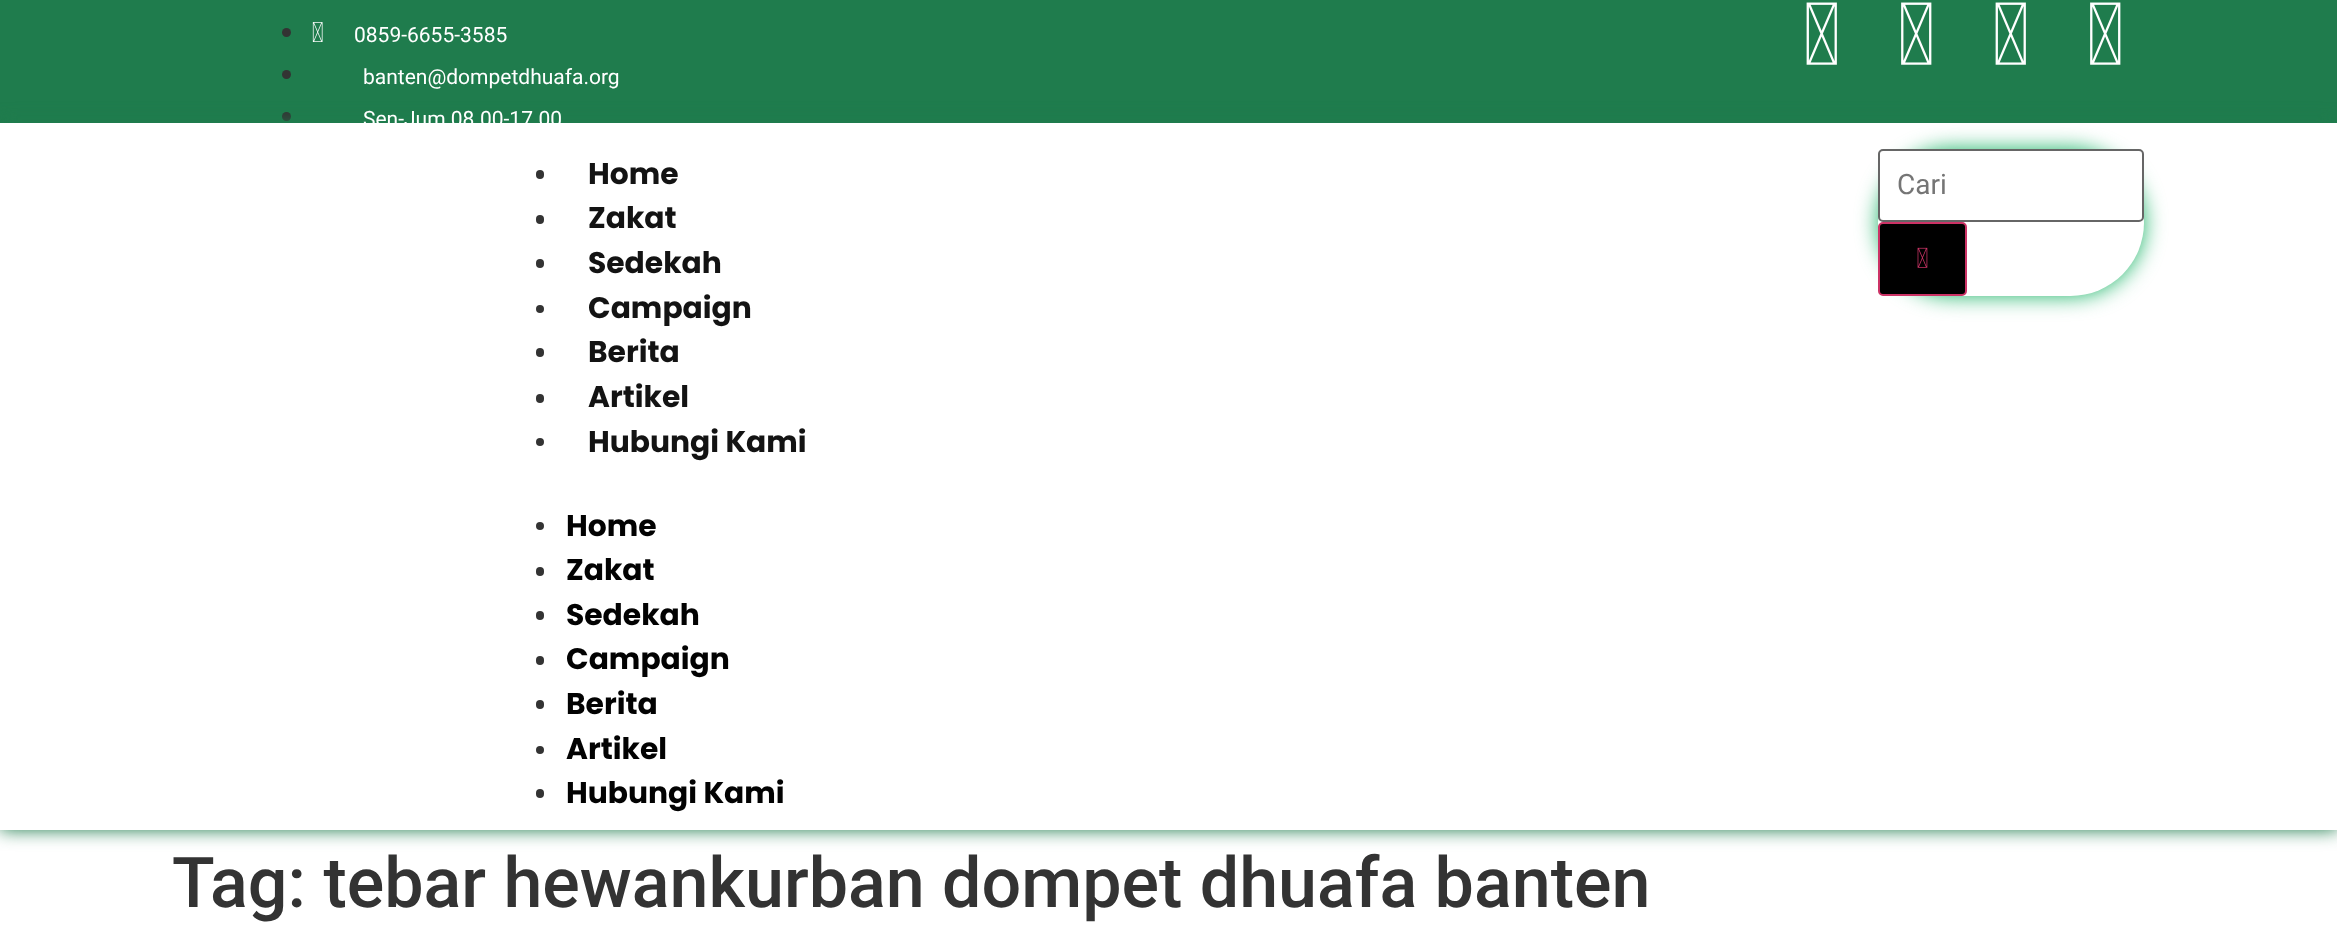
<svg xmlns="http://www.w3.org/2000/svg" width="2337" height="932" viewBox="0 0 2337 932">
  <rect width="100%" height="100%" fill="#fff"/>
  <path d="M0 0h2337v123H0z" fill="#1f7c4d"/>
  <circle cx="286.5" cy="32.5" r="4.5" fill="#333"/>
  <image x="312" y="22" width="11" height="20" href="img/1.png"/>
  <circle cx="286.5" cy="74.5" r="4.5" fill="#333"/>
  <circle cx="286.5" cy="116.5" r="4.5" fill="#333"/>
  <image x="1806" y="2" width="31" height="63" href="img/2.png"/>
  <image x="1901" y="2" width="31" height="63" href="img/3.png"/>
  <image x="1995" y="2" width="31" height="63" href="img/2.png"/>
  <image x="2090" y="2" width="31" height="63" href="img/3.png"/>
  <path d="M0 123h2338v707H0z" fill="#1f7c4d" filter="blur(9px)"/>
  <path d="M0 123h2337v707H0z" fill="#fff"/>
  <rect x="536" y="170" width="8" height="9" rx="4" fill="#333"/>
  <rect x="536" y="215" width="8" height="9" rx="4" fill="#333"/>
  <rect x="536" y="259" width="8" height="9" rx="4" fill="#333"/>
  <circle cx="540" cy="309" r="4" fill="#333"/>
  <rect x="536" y="348" width="8" height="9" rx="4" fill="#333"/>
  <rect x="536" y="394" width="8" height="9" rx="4" fill="#333"/>
  <circle cx="540" cy="442" r="4" fill="#333"/>
  <circle cx="540" cy="526" r="4" fill="#333"/>
  <rect x="536" y="567" width="8" height="9" rx="4" fill="#333"/>
  <rect x="536" y="611" width="8" height="9" rx="4" fill="#333"/>
  <rect x="536" y="656" width="8" height="9" rx="4" fill="#333"/>
  <rect x="536" y="700" width="8" height="9" rx="4" fill="#333"/>
  <circle cx="540" cy="750" r="4" fill="#333"/>
  <rect x="536" y="789" width="8" height="9" rx="4" fill="#333"/>
  <rect x="1878" y="149" width="266" height="147" rx="73.5" fill="#1ab366" filter="blur(10.5px)"/>
  <rect x="1878" y="149" width="266" height="147" rx="73.5" fill="#fff"/>
  <rect x="1879" y="150" width="264" height="71" rx="4" fill="#fff" stroke="#666" stroke-width="2"/>
  <rect x="1879" y="223" width="87" height="72" rx="4" fill="#000" stroke="#c36" stroke-width="2"/>
  <image x="1917" y="247" width="11" height="21" href="img/4.png"/>
  <g font-family="Roboto" font-size="21" fill="#fff">
    <text x="354" y="42">0859-6655-3585</text>
    <text x="363" y="84">banten@dompetdhuafa.org</text>
    <text x="363" y="126">Sen-Jum 08.00-17.00</text>
  </g>
  <g font-family="Poppins" font-size="29.75" font-weight="bold" fill="#131313">
    <text x="588" y="184">Home</text>
    <text x="588" y="228">Zakat</text>
    <text x="588" y="273">Sedekah</text>
    <text x="588" y="318">Campaign</text>
    <text x="588" y="362">Berita</text>
    <text x="588" y="407">Artikel</text>
    <text x="588" y="452">Hubungi Kami</text>
  </g>
  <g font-family="Poppins" font-size="29.75" font-weight="bold" fill="#020202">
    <text x="566" y="536">Home</text>
    <text x="566" y="580">Zakat</text>
    <text x="566" y="625">Sedekah</text>
    <text x="566" y="669">Campaign</text>
    <text x="566" y="714">Berita</text>
    <text x="566" y="759">Artikel</text>
    <text x="566" y="803">Hubungi Kami</text>
  </g>
  <text x="1897" y="194" font-family="Roboto" font-size="28" fill="#757575">Cari</text>
  <text x="172" y="907" font-family="Roboto" font-size="70" font-weight="500" fill="#333">Tag: tebar hewankurban dompet dhuafa banten</text>
</svg>
